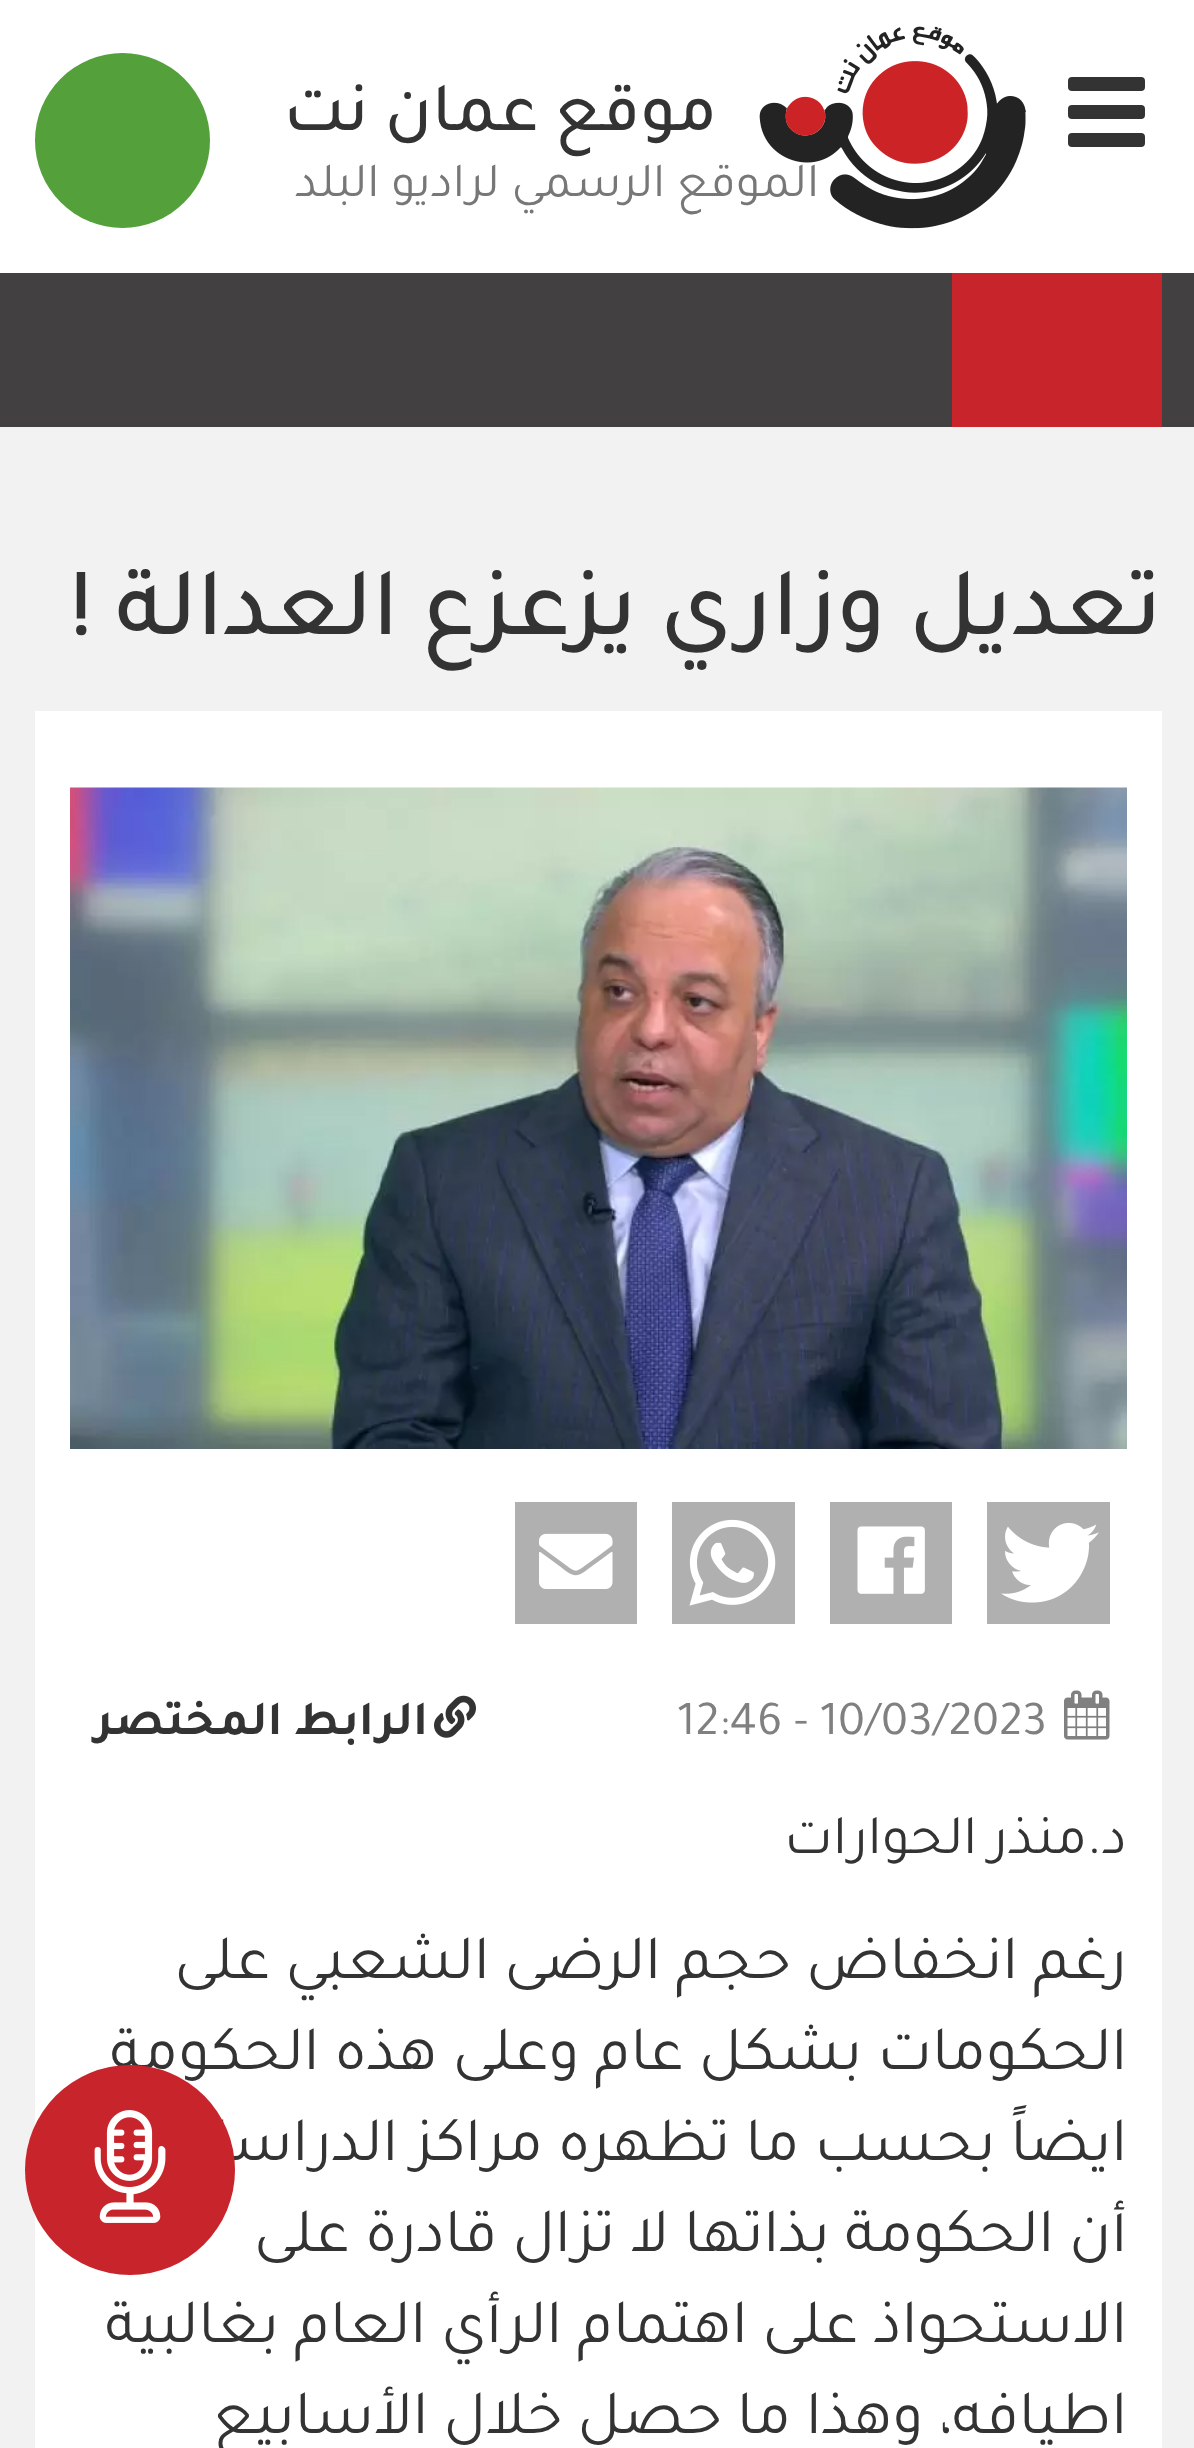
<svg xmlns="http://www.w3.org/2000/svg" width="1194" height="2448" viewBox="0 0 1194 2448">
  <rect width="100%" height="100%" fill="#f2f2f2"/>
  <path d="M0 0h1194v273H0z" fill="#fff"/>
  <rect x="1068" y="77" width="77" height="14" rx="4" fill="#333"/>
  <rect x="1068" y="105" width="77" height="14" rx="4" fill="#333"/>
  <rect x="1068" y="133" width="77" height="14" rx="4" fill="#333"/>
  <image x="759" y="26" width="267" height="203" href="img/1.png"/>
  <circle cx="122.5" cy="140.5" r="87.5" fill="#54a03b"/>
  <path d="M0 273h1194v154H0z" fill="#424041"/>
  <path d="M952 273h210v154H952z" fill="#c8242b"/>
  <path d="M35 711h1127v1737H35z" fill="#fff"/>
  <image x="70" y="787" width="1057" height="662" href="img/2.png"/>
  <path d="M987 1502h123v122H987z" fill="#b0b0b0"/>
  <image x="1001" y="1523" width="98" height="80" href="img/3.png"/>
  <path d="M830 1502h122v122H830z" fill="#b0b0b0"/>
  <image x="857" y="1526" width="68" height="68" href="img/4.png"/>
  <path d="M672 1502h123v122H672z" fill="#b0b0b0"/>
  <image x="689" y="1519" width="87" height="87" href="img/5.png"/>
  <path d="M515 1502h122v122H515z" fill="#b0b0b0"/>
  <image x="539" y="1533" width="74" height="56" href="img/6.png"/>
  <image x="1064" y="1690" width="46" height="50" href="img/7.png"/>
  <image x="434" y="1695" width="42" height="43" href="img/8.png"/>
  <text x="717" y="130" font-family="Tajawal" font-size="70" font-weight="500" direction="rtl" fill="#333">موقع عمان نت</text>
  <text x="819" y="196" font-family="Tajawal" font-size="49" direction="rtl" fill="#777">الموقع الرسمي لراديو البلد</text>
  <text x="1162" y="634" font-family="Tajawal" font-size="98" font-weight="500" direction="rtl" fill="#333">تعديل وزاري يزعزع العدالة !</text>
  <text x="677" y="1734" font-family="Tajawal" font-size="49" fill="#808080">12:46 - 10/03/2023</text>
  <text x="428" y="1734" font-family="Tajawal" font-size="49" font-weight="bold" direction="rtl" fill="#333">الرابط المختصر</text>
  <text x="1127" y="1853" font-family="Tajawal" font-size="56" direction="rtl" fill="#333">د.منذر الحوارات</text>
  <g font-family="Tajawal" font-size="63" direction="rtl" fill="#333">
    <text x="1127" y="1978">رغم انخفاض حجم الرضى الشعبي على</text>
    <text x="1127" y="2069">الحكومات بشكل عام وعلى هذه الحكومة</text>
    <text x="1127" y="2160">ايضاً بحسب ما تظهره مراكز الدراسات، إلا</text>
    <text x="1127" y="2251">أن الحكومة بذاتها لا تزال قادرة على</text>
    <text x="1127" y="2342">الاستحواذ على اهتمام الرأي العام بغالبية</text>
    <text x="1127" y="2433">اطيافه، وهذا ما حصل خلال الأسابيع</text>
  </g>
  <circle cx="130" cy="2170" r="105" fill="#c8242b"/>
  <image x="94" y="2110" width="72" height="113" href="img/9.png"/>
</svg>
